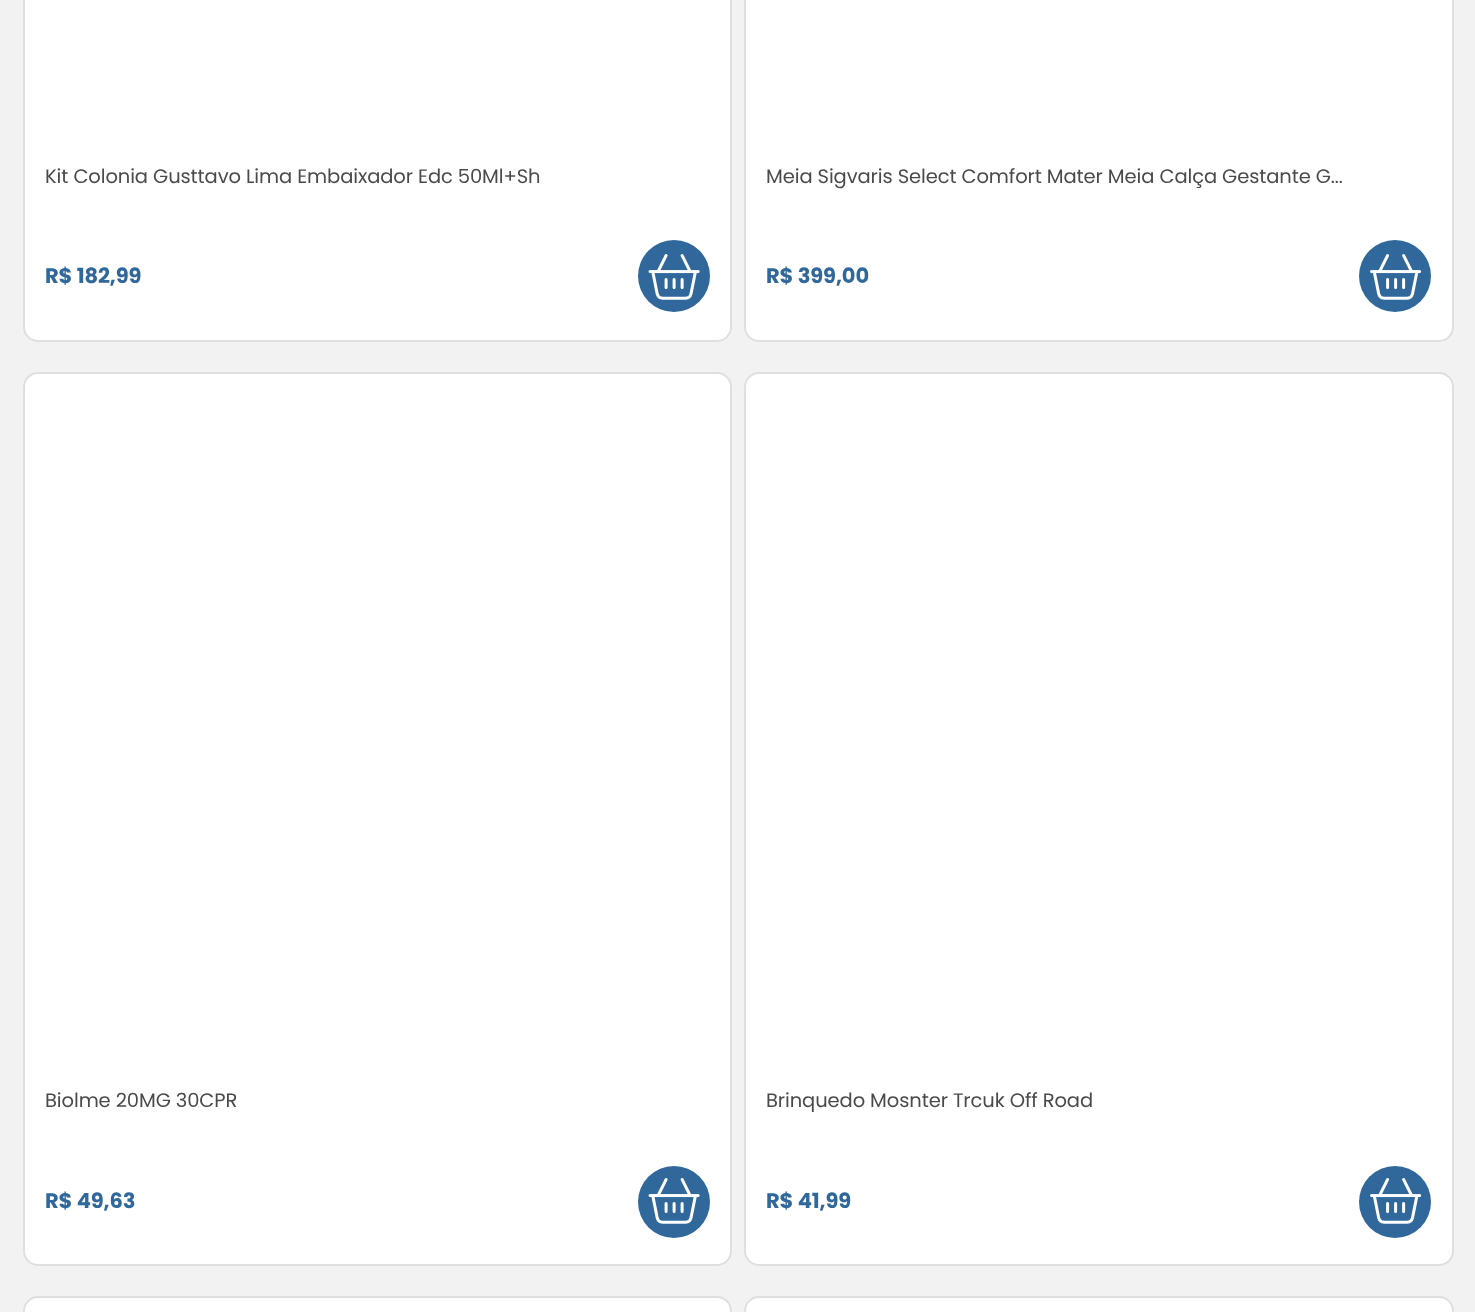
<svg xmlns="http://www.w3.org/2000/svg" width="1475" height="1312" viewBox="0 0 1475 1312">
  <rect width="100%" height="100%" fill="#f2f2f2"/>
  <rect x="24" y="-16" width="707" height="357" rx="14" fill="#fff" stroke="#dfdfdf" stroke-width="2"/>
  <circle cx="674" cy="276" r="36" fill="#30689c"/>
  <image x="648" y="254" width="52" height="46" href="img/1.png"/>
  <rect x="745" y="-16" width="708" height="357" rx="14" fill="#fff" stroke="#dfdfdf" stroke-width="2"/>
  <circle cx="1395" cy="276" r="36" fill="#30689c"/>
  <image x="1370" y="254" width="52" height="46" href="img/2.png"/>
  <rect x="24" y="373" width="707" height="892" rx="14" fill="#fff" stroke="#dfdfdf" stroke-width="2"/>
  <circle cx="674" cy="1202" r="36" fill="#30689c"/>
  <image x="648" y="1178" width="52" height="46" href="img/1.png"/>
  <rect x="745" y="373" width="708" height="892" rx="14" fill="#fff" stroke="#dfdfdf" stroke-width="2"/>
  <circle cx="1395" cy="1202" r="36" fill="#30689c"/>
  <image x="1370" y="1178" width="52" height="46" href="img/3.png"/>
  <rect x="24" y="1297" width="707" height="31" rx="14" fill="#fff" stroke="#dfdfdf" stroke-width="2"/>
  <rect x="745" y="1297" width="708" height="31" rx="14" fill="#fff" stroke="#dfdfdf" stroke-width="2"/>
  <text x="45" y="183" font-family="Poppins" font-size="19.5" letter-spacing="-0.1" fill="#4a4a4a">Kit Colonia Gusttavo Lima Embaixador Edc 50Ml+Sh</text>
  <text x="45" y="283" font-family="Poppins" font-size="21" font-weight="bold" letter-spacing="-0.1" fill="#30689c">R$ 182,99</text>
  <text x="766" y="183" font-family="Poppins" font-size="19.5" letter-spacing="-0.1" fill="#4a4a4a">Meia Sigvaris Select Comfort Mater Meia Calça Gestante G...</text>
  <text x="766" y="283" font-family="Poppins" font-size="21" font-weight="bold" letter-spacing="-0.1" fill="#30689c">R$ 399,00</text>
  <text x="45" y="1107" font-family="Poppins" font-size="19.5" letter-spacing="-0.1" fill="#4a4a4a">Biolme 20MG 30CPR</text>
  <text x="45" y="1208" font-family="Poppins" font-size="21" font-weight="bold" letter-spacing="-0.1" fill="#30689c">R$ 49,63</text>
  <text x="766" y="1107" font-family="Poppins" font-size="19.5" letter-spacing="-0.1" fill="#4a4a4a">Brinquedo Mosnter Trcuk Off Road</text>
  <text x="766" y="1208" font-family="Poppins" font-size="21" font-weight="bold" letter-spacing="-0.1" fill="#30689c">R$ 41,99</text>
</svg>
